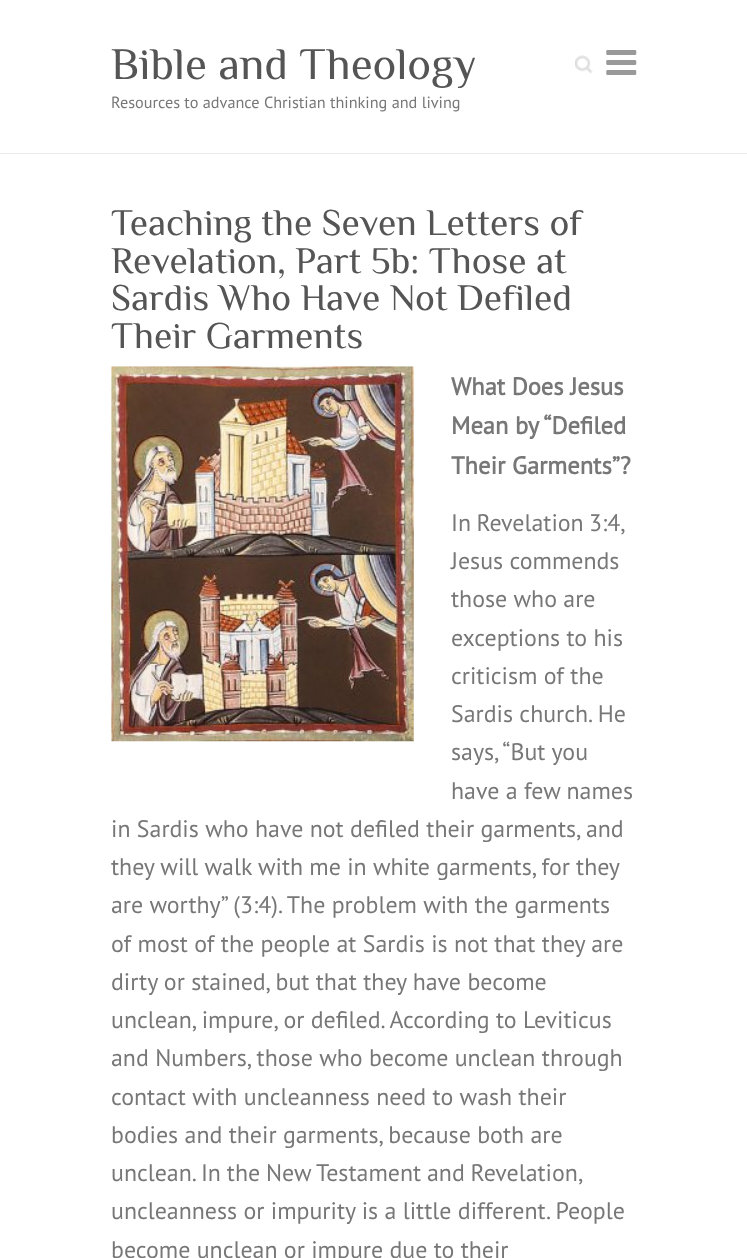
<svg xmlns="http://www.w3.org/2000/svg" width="747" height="1258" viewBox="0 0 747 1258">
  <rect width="100%" height="100%" fill="#fff"/>
  <image x="575" y="55" width="18" height="19" href="img/1.png"/>
  <image x="606" y="50" width="31" height="25" href="img/2.png"/>
  <path d="M0 153h747v1H0z" fill="#eaeaea"/>
  <image x="111" y="366" width="303" height="376" href="img/3.png"/>
  <text x="111" y="79" font-family="Philosopher" font-size="45" fill="#555">Bible and Theology</text>
  <text x="111" y="108" font-family="PT Sans" font-size="16.25" fill="#777">Resources to advance Christian thinking and living</text>
  <g font-family="Philosopher" font-size="37.5" fill="#555">
    <text x="111" y="235">Teaching the Seven Letters of</text>
    <text x="111" y="273">Revelation, Part 5b: Those at</text>
    <text x="111" y="310">Sardis Who Have Not Defiled</text>
    <text x="111" y="348">Their Garments</text>
  </g>
  <g font-family="PT Sans" font-size="24.5" font-weight="bold" fill="#777">
    <text x="451" y="395">What Does Jesus</text>
    <text x="451" y="434">Mean by “Defiled</text>
    <text x="451" y="474">Their Garments”?</text>
  </g>
  <g font-family="PT Sans" font-size="23.9" fill="#777">
    <text x="451" y="531" word-spacing="-1">In Revelation 3:4,</text>
    <text x="451" y="569">Jesus commends</text>
    <text x="451" y="607">those who are</text>
    <text x="451" y="646">exceptions to his</text>
    <text x="451" y="684">criticism of the</text>
    <text x="451" y="722">Sardis church. He</text>
    <text x="451" y="760">says, “But you</text>
    <text x="451" y="799">have a few names</text>
    <text x="111" y="837">in Sardis who have not defiled their garments, and</text>
    <text x="111" y="875" word-spacing="-0.1">they will walk with me in white garments, for they</text>
    <text x="111" y="913">are worthy” (3:4). The problem with the garments</text>
    <text x="111" y="952">of most of the people at Sardis is not that they are</text>
    <text x="111" y="990">dirty or stained, but that they have become</text>
    <text x="111" y="1028">unclean, impure, or defiled. According to Leviticus</text>
    <text x="111" y="1066">and Numbers, those who become unclean through</text>
    <text x="111" y="1105">contact with uncleanness need to wash their</text>
    <text x="111" y="1143">bodies and their garments, because both are</text>
    <text x="111" y="1181" word-spacing="-0.5">unclean. In the New Testament and Revelation,</text>
    <text x="111" y="1219">uncleanness or impurity is a little different. People</text>
    <text x="111" y="1258">become unclean or impure due to their</text>
  </g>
</svg>
